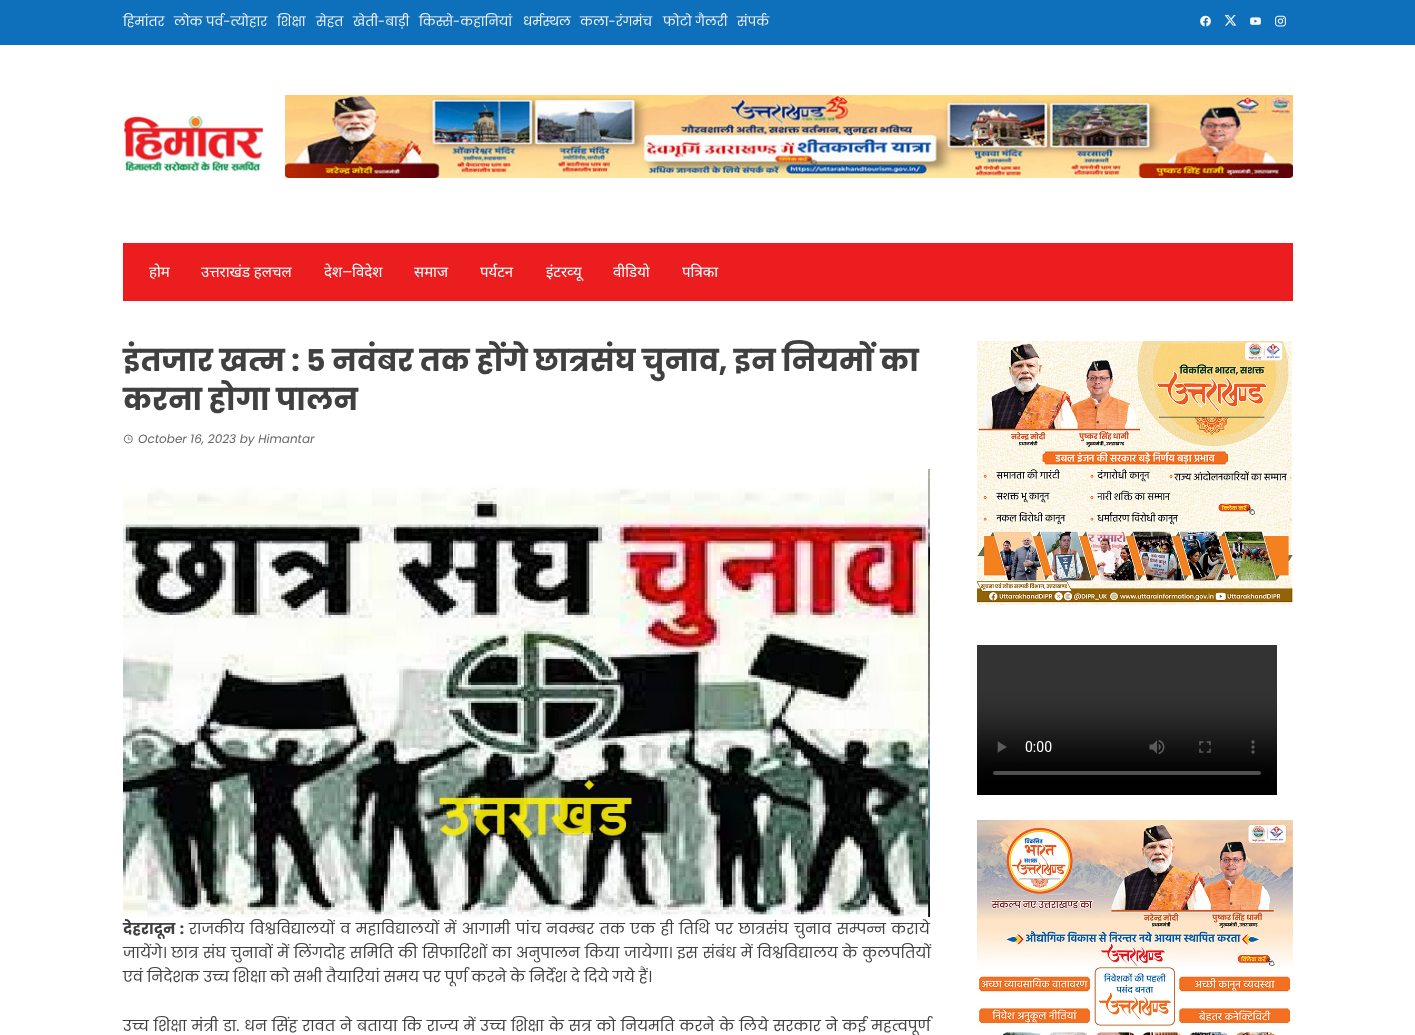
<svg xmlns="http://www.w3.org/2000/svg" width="1415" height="1035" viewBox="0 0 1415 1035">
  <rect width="100%" height="100%" fill="#fff"/>
  <path d="M0 0h1415v45H0z" fill="#0e6fba"/>
  <image x="1200" y="15" width="11" height="12" href="img/1.png"/>
  <image x="1224" y="15" width="13" height="11" href="img/2.png"/>
  <image x="1250" y="17" width="11" height="8" href="img/3.png"/>
  <image x="1275" y="15" width="11" height="12" href="img/4.png"/>
  <image x="123" y="115" width="141" height="59" href="img/5.png"/>
  <image x="285" y="95" width="1008" height="83" href="img/6.png"/>
  <path d="M123 243h1170v58H123z" fill="#eb1d1f"/>
  <image x="123" y="434" width="10" height="10" href="img/7.png"/>
  <image x="123" y="469" width="807" height="448" href="img/8.png"/>
  <image x="977" y="341" width="316" height="264" href="img/9.png"/>
  <image x="977" y="645" width="300" height="150" href="img/10.png"/>
  <image x="977" y="820" width="316" height="215" href="img/11.png"/>
  <g font-family="Poppins" font-size="13" fill="#f6f6f6">
    <text x="123" y="26">हिमांतर</text>
    <text x="174" y="26">लोक पर्व-त्योहार</text>
    <text x="277" y="26">शिक्षा</text>
    <text x="316" y="26">सेहत</text>
    <text x="353" y="26">खेती-बाड़ी</text>
    <text x="419" y="26">किस्से-कहानियां</text>
    <text x="523" y="26">धर्मस्थल</text>
    <text x="580" y="26">कला-रंगमंच</text>
    <text x="663" y="26">फोटो गैलरी</text>
    <text x="737" y="26">संपर्क</text>
  </g>
  <g font-family="Noto Sans" font-size="15" fill="#fff">
    <text x="149" y="277">होम</text>
    <text x="201" y="277">उत्तराखंड हलचल</text>
    <text x="324" y="277">देश</text>
  </g>
  <text x="342" y="277" font-family="Roboto Condensed" font-size="15" fill="#fff">—</text>
  <g font-family="Noto Sans" font-size="15" fill="#fff">
    <text x="352" y="277">विदेश</text>
    <text x="414" y="277">समाज</text>
    <text x="480" y="277">पर्यटन</text>
    <text x="546" y="277">इंटरव्‍यू</text>
    <text x="613" y="277">वीडियो</text>
    <text x="682" y="277">पत्रिका</text>
  </g>
  <g font-family="Poppins" font-size="30" font-weight="bold" fill="#404040">
    <text x="123" y="371">इंतजार खत्म : 5 नवंबर तक होंगे छात्रसंघ चुनाव, इन नियमों का</text>
    <text x="123" y="410">करना होगा पालन</text>
  </g>
  <text x="138" y="443" font-family="Poppins" font-size="12" font-style="italic" fill="#666">October 16, 2023 by Himantar</text>
  <text x="123" y="934" word-spacing="1.4" font-family="Poppins" font-size="15" font-weight="bold" fill="#404040">देहरादून :</text>
  <g font-family="Poppins" font-size="15" fill="#404040">
    <text x="189" y="934" word-spacing="1.4">राजकीय विश्वविद्यालयों व महाविद्यालयों में आगामी पांच नवम्बर तक एक ही तिथि पर छात्रसंघ चुनाव सम्पन्न कराये</text>
    <text x="123" y="958" word-spacing="0.75">जायेंगे। छात्र संघ चुनावों में लिंगदोह समिति की सिफारिशों का अनुपालन किया जायेगा। इस संबंध में विश्वविद्यालय के कुलपतियों</text>
    <text x="123" y="982">एवं निदेशक उच्च शिक्षा को सभी तैयारियां समय पर पूर्ण करने के निर्देश दे दिये गये हैं।</text>
    <text x="123" y="1031" word-spacing="0.95">उच्च शिक्षा मंत्री डा. धन सिंह रावत ने बताया कि राज्य में उच्च शिक्षा के सत्र को नियमति करने के लिये सरकार ने कई महत्वपूर्ण</text>
  </g>
</svg>
